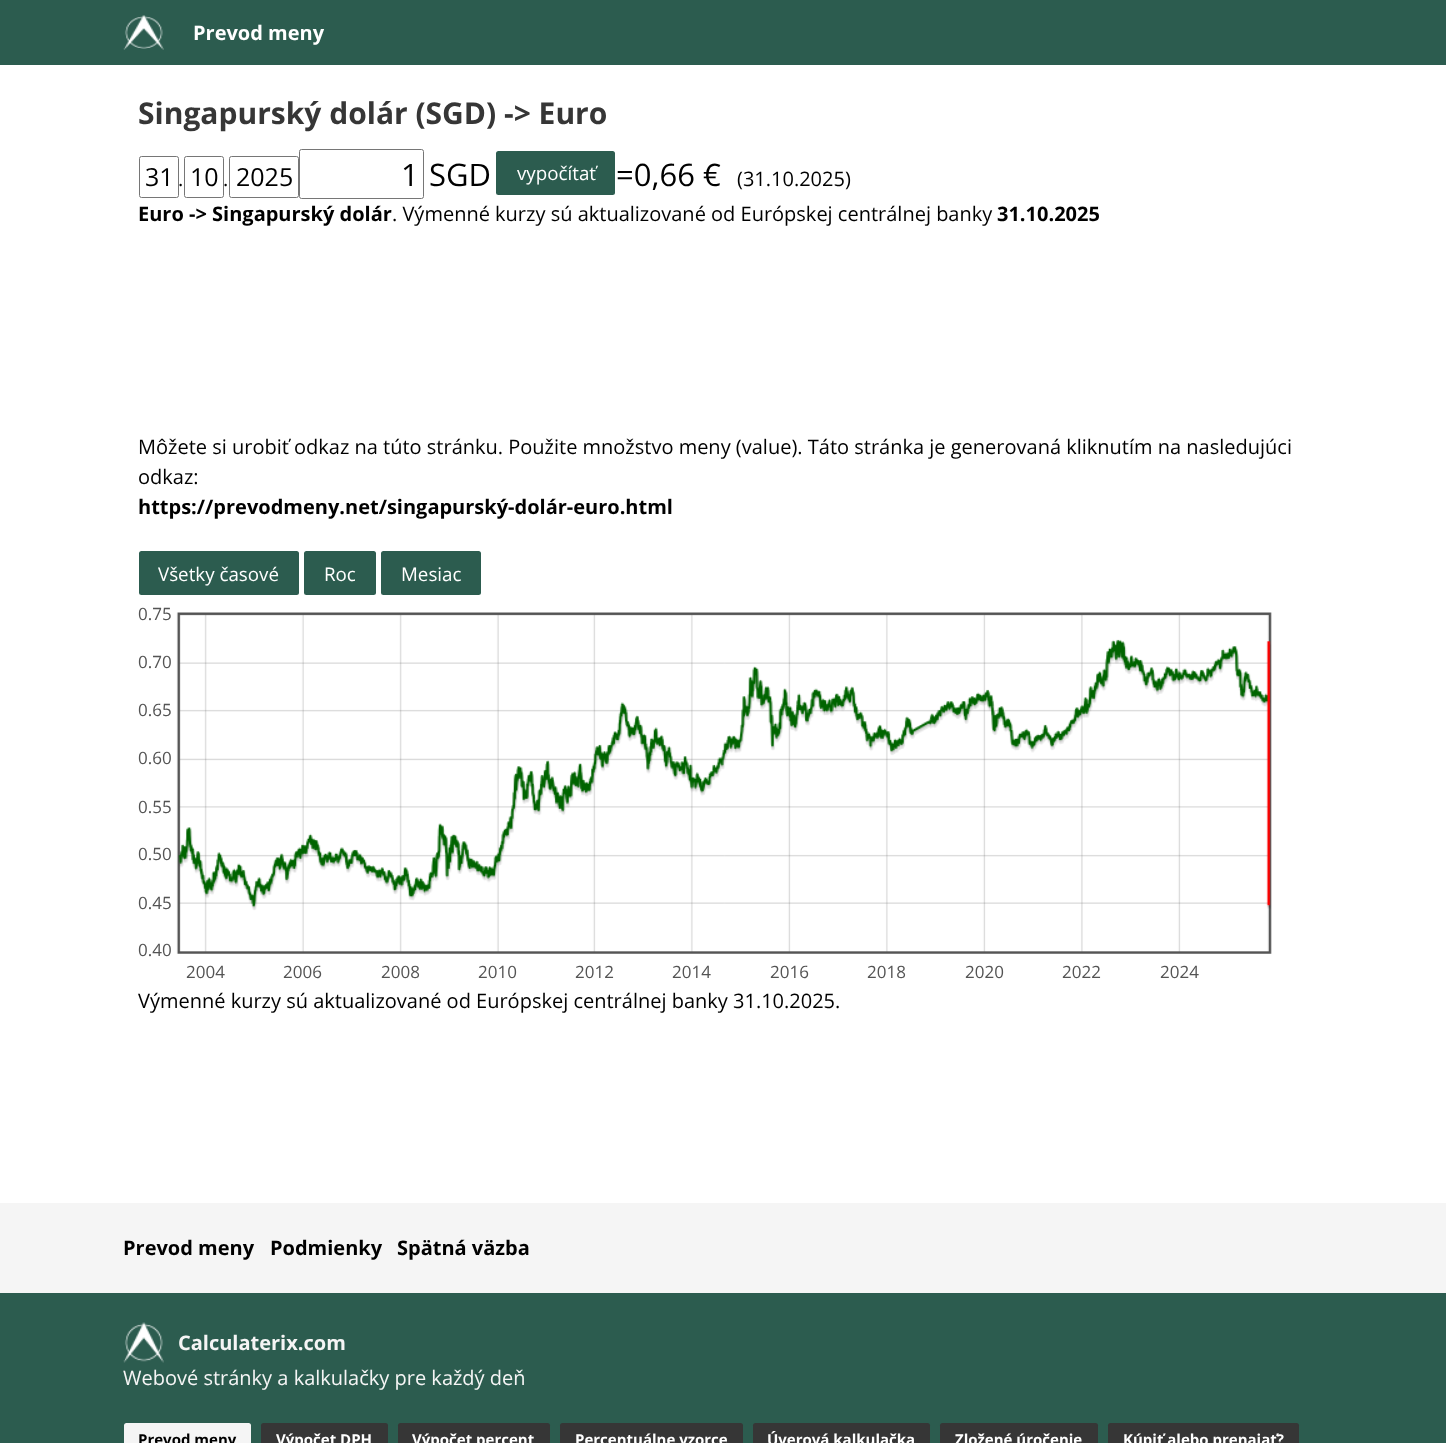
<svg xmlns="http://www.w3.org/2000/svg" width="1446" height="1443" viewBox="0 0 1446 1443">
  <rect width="100%" height="100%" fill="#fff"/>
  <path d="M0 0h1446v65H0z" fill="#2c5c4f"/>
  <image x="123" y="15" width="41" height="35" href="img/1.png"/>
  <rect x="139.5" y="156.5" width="39" height="41" rx="2" fill="none" stroke="#767676"/>
  <rect x="184.5" y="156.5" width="39" height="41" rx="2" fill="none" stroke="#767676"/>
  <rect x="229.5" y="156.5" width="69" height="41" rx="2" fill="none" stroke="#767676"/>
  <rect x="299.5" y="149.5" width="124" height="49" rx="2" fill="none" stroke="#767676"/>
  <rect x="496" y="151" width="119" height="44" rx="2.5" fill="#2c5c4f"/>
  <rect x="139" y="551" width="160" height="44" rx="2.5" fill="#2c5c4f"/>
  <rect x="304" y="551" width="72" height="44" rx="2.5" fill="#2c5c4f"/>
  <rect x="381" y="551" width="100" height="44" rx="2.5" fill="#2c5c4f"/>
  <image x="176" y="612" width="1096" height="342" href="img/2.png"/>
  <path d="M0 1203h1446v90H0z" fill="#f5f5f5"/>
  <path d="M0 1293h1446v150H0z" fill="#2c5c4f"/>
  <image x="123" y="1322" width="41" height="41" href="img/3.png"/>
  <rect x="124" y="1423" width="127" height="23" rx="2.5" fill="#f5f5f5"/>
  <rect x="261" y="1423" width="127" height="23" rx="2.5" fill="#363636"/>
  <rect x="398" y="1423" width="152" height="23" rx="2.5" fill="#363636"/>
  <rect x="560" y="1423" width="183" height="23" rx="2.5" fill="#363636"/>
  <rect x="753" y="1423" width="177" height="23" rx="2.5" fill="#363636"/>
  <rect x="940" y="1423" width="158" height="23" rx="2.5" fill="#363636"/>
  <rect x="1108" y="1423" width="191" height="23" rx="2.5" fill="#363636"/>
  <text x="193" y="40" font-family="Open Sans" font-size="20" font-weight="bold" fill="#fff">Prevod meny</text>
  <text x="138" y="124" font-family="Open Sans" font-size="30" font-weight="bold" fill="#363636">Singapurský dolár (SGD) -&gt; Euro</text>
  <text x="145" y="186" font-family="Open Sans" font-size="25" fill="#000">31</text>
  <text x="178" y="186" font-family="Open Sans" font-size="20" fill="#000">.</text>
  <text x="190" y="186" font-family="Open Sans" font-size="25" fill="#000">10</text>
  <text x="223" y="186" font-family="Open Sans" font-size="20" fill="#000">.</text>
  <text x="236" y="186" font-family="Open Sans" font-size="25" fill="#000">2025</text>
  <g font-family="Open Sans" font-size="31" fill="#000">
    <text x="401" y="186">1</text>
    <text x="429" y="186">SGD</text>
  </g>
  <text x="517" y="180" font-family="Open Sans" font-size="18.75" fill="#fff">vypočítať</text>
  <text x="616" y="186" font-family="Open Sans" font-size="31" fill="#000">=0,66 €</text>
  <text x="737" y="186" font-family="Open Sans" font-size="20" fill="#000">(31.10.2025)</text>
  <text x="138" y="221" font-family="Open Sans" font-size="20" font-weight="bold" fill="#000">Euro -&gt; Singapurský dolár</text>
  <text x="392" y="221" font-family="Open Sans" font-size="20" fill="#000">. Výmenné kurzy sú aktualizované od Európskej centrálnej banky</text>
  <text x="997" y="221" font-family="Open Sans" font-size="20" font-weight="bold" fill="#000">31.10.2025</text>
  <g font-family="Open Sans" font-size="20" fill="#000">
    <text x="138" y="454">Môžete si urobiť odkaz na túto stránku. Použite množstvo meny (value). Táto stránka je generovaná kliknutím na nasledujúci</text>
    <text x="138" y="484">odkaz:</text>
  </g>
  <text x="138" y="514" font-family="Open Sans" font-size="20" font-weight="bold" fill="#000">https://prevodmeny.net/singapurský-dolár-euro.html</text>
  <g font-family="Open Sans" font-size="18.75" fill="#fff">
    <text x="158" y="581">Všetky časové</text>
    <text x="324" y="581">Roc</text>
    <text x="401" y="581">Mesiac</text>
  </g>
  <g font-family="Open Sans" font-size="17" fill="#545454">
    <text x="138" y="620">0.75</text>
    <text x="138" y="668">0.70</text>
    <text x="138" y="716">0.65</text>
    <text x="138" y="764">0.60</text>
    <text x="138" y="813">0.55</text>
    <text x="138" y="860">0.50</text>
    <text x="138" y="909">0.45</text>
    <text x="138" y="956">0.40</text>
    <text x="186" y="978">2004</text>
    <text x="283" y="978">2006</text>
    <text x="381" y="978">2008</text>
    <text x="478" y="978">2010</text>
    <text x="575" y="978">2012</text>
    <text x="672" y="978">2014</text>
    <text x="770" y="978">2016</text>
    <text x="867" y="978">2018</text>
    <text x="965" y="978">2020</text>
    <text x="1062" y="978">2022</text>
    <text x="1160" y="978">2024</text>
  </g>
  <text x="138" y="1008" font-family="Open Sans" font-size="20" fill="#000">Výmenné kurzy sú aktualizované od Európskej centrálnej banky 31.10.2025.</text>
  <g font-family="Open Sans" font-size="20" font-weight="bold" fill="#000">
    <text x="123" y="1255">Prevod meny</text>
    <text x="270" y="1255">Podmienky</text>
    <text x="397" y="1255">Spätná väzba</text>
  </g>
  <text x="178" y="1350" font-family="Open Sans" font-size="20" font-weight="bold" fill="#f5f5f5">Calculaterix.com</text>
  <text x="123" y="1385" font-family="Open Sans" font-size="20" fill="#f5f5f5">Webové stránky a kalkulačky pre každý deň</text>
  <text x="138" y="1445" font-family="Open Sans" font-size="15" font-weight="bold" fill="#000">Prevod meny</text>
  <g font-family="Open Sans" font-size="15" font-weight="bold" fill="#fff">
    <text x="276" y="1445">Výpočet DPH</text>
    <text x="412" y="1445">Výpočet percent</text>
    <text x="575" y="1445">Percentuálne vzorce</text>
    <text x="767" y="1445">Úverová kalkulačka</text>
    <text x="955" y="1445">Zložené úročenie</text>
    <text x="1123" y="1445">Kúpiť alebo prenajať?</text>
  </g>
</svg>
